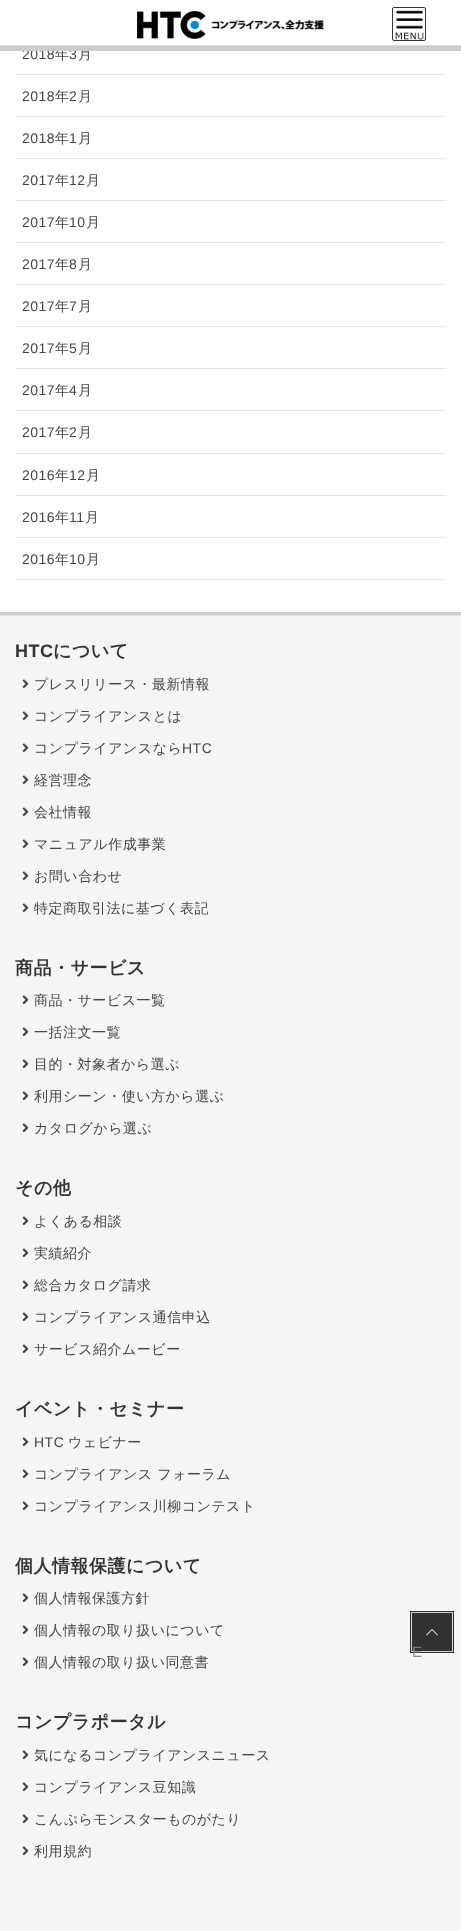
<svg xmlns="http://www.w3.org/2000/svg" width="461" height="1931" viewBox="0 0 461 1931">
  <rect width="100%" height="100%" fill="#fff"/>
  <image x="395" y="10" width="29" height="30" href="img/1.png"/>
  <rect x="392.5" y="7.5" width="33" height="33" rx="1.5" fill="none" stroke="#333"/>
  <path d="M0 45h461v1H0z" fill="#dadada"/>
  <image x="137" y="11" width="187" height="28" href="img/2.png"/>
  <path d="M15 74h431v1H15z" fill="#e5e5e5"/>
  <path d="M15 116h431v1H15z" fill="#e5e5e5"/>
  <path d="M15 158h431v1H15z" fill="#e5e5e5"/>
  <path d="M15 200h431v1H15z" fill="#e5e5e5"/>
  <path d="M15 242h431v1H15z" fill="#e5e5e5"/>
  <path d="M15 284h431v1H15z" fill="#e5e5e5"/>
  <path d="M15 326h431v1H15z" fill="#e5e5e5"/>
  <path d="M15 368h431v1H15z" fill="#e5e5e5"/>
  <path d="M15 410h431v1H15z" fill="#e5e5e5"/>
  <path d="M15 453h431v1H15z" fill="#e5e5e5"/>
  <path d="M15 495h431v1H15z" fill="#e5e5e5"/>
  <path d="M15 537h431v1H15z" fill="#e5e5e5"/>
  <path d="M15 579h431v1H15z" fill="#e5e5e5"/>
  <path d="M0 616h461v1315H0z" fill="#f5f5f5"/>
  <path d="M0 612h461v3H0z" fill="#cbcccc"/>
  <path d="M0 615h461v1H0z" fill="#e5e5e5"/>
  <image x="22" y="679" width="7" height="10" href="img/3.png"/>
  <image x="22" y="711" width="7" height="10" href="img/3.png"/>
  <image x="22" y="743" width="7" height="10" href="img/3.png"/>
  <image x="22" y="775" width="7" height="10" href="img/3.png"/>
  <image x="22" y="807" width="7" height="10" href="img/3.png"/>
  <image x="22" y="839" width="7" height="10" href="img/3.png"/>
  <image x="22" y="871" width="7" height="10" href="img/3.png"/>
  <image x="22" y="903" width="7" height="10" href="img/3.png"/>
  <image x="22" y="995" width="7" height="10" href="img/3.png"/>
  <image x="22" y="1027" width="7" height="10" href="img/3.png"/>
  <image x="22" y="1059" width="7" height="10" href="img/3.png"/>
  <image x="22" y="1091" width="7" height="10" href="img/3.png"/>
  <image x="22" y="1123" width="7" height="10" href="img/3.png"/>
  <image x="22" y="1216" width="7" height="10" href="img/3.png"/>
  <image x="22" y="1248" width="7" height="10" href="img/3.png"/>
  <image x="22" y="1280" width="7" height="10" href="img/3.png"/>
  <image x="22" y="1312" width="7" height="10" href="img/3.png"/>
  <image x="22" y="1344" width="7" height="10" href="img/3.png"/>
  <image x="22" y="1437" width="7" height="10" href="img/3.png"/>
  <image x="22" y="1469" width="7" height="10" href="img/3.png"/>
  <image x="22" y="1501" width="7" height="10" href="img/3.png"/>
  <image x="22" y="1593" width="7" height="10" href="img/3.png"/>
  <image x="22" y="1625" width="7" height="10" href="img/3.png"/>
  <image x="22" y="1657" width="7" height="10" href="img/3.png"/>
  <image x="22" y="1750" width="7" height="10" href="img/3.png"/>
  <image x="22" y="1782" width="7" height="10" href="img/3.png"/>
  <image x="22" y="1814" width="7" height="10" href="img/3.png"/>
  <image x="22" y="1846" width="7" height="10" href="img/3.png"/>
  <path d="M411 1612h42v40H411z" fill="none" stroke="#313131" stroke-width="2"/>
  <path d="M411.5 1612.5h41v39H411.5z" fill="none" stroke="#d6d6d6"/>
  <path d="M412 1613h40v38H412z" fill="#313131"/>
  <image x="426" y="1629" width="12" height="7" href="img/4.png"/>
  <text x="22" y="59" font-family="Liberation Sans" font-size="14" letter-spacing="0.5" fill="#464646">2018</text>
  <text x="55" y="59" font-family="WenQuanYi Zen Hei" font-size="14" font-weight="500" letter-spacing="0.5" fill="#464646">年</text>
  <text x="69" y="59" font-family="Liberation Sans" font-size="14" letter-spacing="0.5" fill="#464646">3</text>
  <text x="78" y="59" font-family="WenQuanYi Zen Hei" font-size="14" font-weight="500" letter-spacing="0.5" fill="#464646">月</text>
  <path d="M0 46h461v5H0z" fill="#cbcccc"/>
  <text x="22" y="101" font-family="Liberation Sans" font-size="14" letter-spacing="0.5" fill="#464646">2018</text>
  <text x="55" y="101" font-family="WenQuanYi Zen Hei" font-size="14" font-weight="500" letter-spacing="0.5" fill="#464646">年</text>
  <text x="69" y="101" font-family="Liberation Sans" font-size="14" letter-spacing="0.5" fill="#464646">2</text>
  <text x="78" y="101" font-family="WenQuanYi Zen Hei" font-size="14" font-weight="500" letter-spacing="0.5" fill="#464646">月</text>
  <text x="22" y="143" font-family="Liberation Sans" font-size="14" letter-spacing="0.5" fill="#464646">2018</text>
  <text x="55" y="143" font-family="WenQuanYi Zen Hei" font-size="14" font-weight="500" letter-spacing="0.5" fill="#464646">年</text>
  <text x="69" y="143" font-family="Liberation Sans" font-size="14" letter-spacing="0.5" fill="#464646">1</text>
  <text x="78" y="143" font-family="WenQuanYi Zen Hei" font-size="14" font-weight="500" letter-spacing="0.5" fill="#464646">月</text>
  <text x="22" y="185" font-family="Liberation Sans" font-size="14" letter-spacing="0.5" fill="#464646">2017</text>
  <text x="55" y="185" font-family="WenQuanYi Zen Hei" font-size="14" font-weight="500" letter-spacing="0.5" fill="#464646">年</text>
  <text x="69" y="185" font-family="Liberation Sans" font-size="14" letter-spacing="0.5" fill="#464646">12</text>
  <text x="86" y="185" font-family="WenQuanYi Zen Hei" font-size="14" font-weight="500" letter-spacing="0.5" fill="#464646">月</text>
  <text x="22" y="227" font-family="Liberation Sans" font-size="14" letter-spacing="0.5" fill="#464646">2017</text>
  <text x="55" y="227" font-family="WenQuanYi Zen Hei" font-size="14" font-weight="500" letter-spacing="0.5" fill="#464646">年</text>
  <text x="69" y="227" font-family="Liberation Sans" font-size="14" letter-spacing="0.5" fill="#464646">10</text>
  <text x="86" y="227" font-family="WenQuanYi Zen Hei" font-size="14" font-weight="500" letter-spacing="0.5" fill="#464646">月</text>
  <text x="22" y="269" font-family="Liberation Sans" font-size="14" letter-spacing="0.5" fill="#464646">2017</text>
  <text x="55" y="269" font-family="WenQuanYi Zen Hei" font-size="14" font-weight="500" letter-spacing="0.5" fill="#464646">年</text>
  <text x="69" y="269" font-family="Liberation Sans" font-size="14" letter-spacing="0.5" fill="#464646">8</text>
  <text x="78" y="269" font-family="WenQuanYi Zen Hei" font-size="14" font-weight="500" letter-spacing="0.5" fill="#464646">月</text>
  <text x="22" y="311" font-family="Liberation Sans" font-size="14" letter-spacing="0.5" fill="#464646">2017</text>
  <text x="55" y="311" font-family="WenQuanYi Zen Hei" font-size="14" font-weight="500" letter-spacing="0.5" fill="#464646">年</text>
  <text x="69" y="311" font-family="Liberation Sans" font-size="14" letter-spacing="0.5" fill="#464646">7</text>
  <text x="78" y="311" font-family="WenQuanYi Zen Hei" font-size="14" font-weight="500" letter-spacing="0.5" fill="#464646">月</text>
  <text x="22" y="353" font-family="Liberation Sans" font-size="14" letter-spacing="0.5" fill="#464646">2017</text>
  <text x="55" y="353" font-family="WenQuanYi Zen Hei" font-size="14" font-weight="500" letter-spacing="0.5" fill="#464646">年</text>
  <text x="69" y="353" font-family="Liberation Sans" font-size="14" letter-spacing="0.5" fill="#464646">5</text>
  <text x="78" y="353" font-family="WenQuanYi Zen Hei" font-size="14" font-weight="500" letter-spacing="0.5" fill="#464646">月</text>
  <text x="22" y="395" font-family="Liberation Sans" font-size="14" letter-spacing="0.5" fill="#464646">2017</text>
  <text x="55" y="395" font-family="WenQuanYi Zen Hei" font-size="14" font-weight="500" letter-spacing="0.5" fill="#464646">年</text>
  <text x="69" y="395" font-family="Liberation Sans" font-size="14" letter-spacing="0.5" fill="#464646">4</text>
  <text x="78" y="395" font-family="WenQuanYi Zen Hei" font-size="14" font-weight="500" letter-spacing="0.5" fill="#464646">月</text>
  <text x="22" y="437" font-family="Liberation Sans" font-size="14" letter-spacing="0.5" fill="#464646">2017</text>
  <text x="55" y="437" font-family="WenQuanYi Zen Hei" font-size="14" font-weight="500" letter-spacing="0.5" fill="#464646">年</text>
  <text x="69" y="437" font-family="Liberation Sans" font-size="14" letter-spacing="0.5" fill="#464646">2</text>
  <text x="78" y="437" font-family="WenQuanYi Zen Hei" font-size="14" font-weight="500" letter-spacing="0.5" fill="#464646">月</text>
  <text x="22" y="480" font-family="Liberation Sans" font-size="14" letter-spacing="0.5" fill="#464646">2016</text>
  <text x="55" y="480" font-family="WenQuanYi Zen Hei" font-size="14" font-weight="500" letter-spacing="0.5" fill="#464646">年</text>
  <text x="69" y="480" font-family="Liberation Sans" font-size="14" letter-spacing="0.5" fill="#464646">12</text>
  <text x="86" y="480" font-family="WenQuanYi Zen Hei" font-size="14" font-weight="500" letter-spacing="0.5" fill="#464646">月</text>
  <text x="22" y="522" font-family="Liberation Sans" font-size="14" letter-spacing="0.5" fill="#464646">2016</text>
  <text x="55" y="522" font-family="WenQuanYi Zen Hei" font-size="14" font-weight="500" letter-spacing="0.5" fill="#464646">年</text>
  <text x="69" y="522" font-family="Liberation Sans" font-size="14" letter-spacing="0.5" fill="#464646">11</text>
  <text x="85" y="522" font-family="WenQuanYi Zen Hei" font-size="14" font-weight="500" letter-spacing="0.5" fill="#464646">月</text>
  <text x="22" y="564" font-family="Liberation Sans" font-size="14" letter-spacing="0.5" fill="#464646">2016</text>
  <text x="55" y="564" font-family="WenQuanYi Zen Hei" font-size="14" font-weight="500" letter-spacing="0.5" fill="#464646">年</text>
  <text x="69" y="564" font-family="Liberation Sans" font-size="14" letter-spacing="0.5" fill="#464646">10</text>
  <text x="86" y="564" font-family="WenQuanYi Zen Hei" font-size="14" font-weight="500" letter-spacing="0.5" fill="#464646">月</text>
  <text x="15" y="657" font-family="Liberation Sans" font-size="18" font-weight="bold" letter-spacing="0.5" fill="#333">HTC</text>
  <text x="53" y="657" font-family="WenQuanYi Zen Hei" font-size="18" font-weight="bold" letter-spacing="0.5" fill="#333">について</text>
  <g font-family="WenQuanYi Zen Hei" font-size="14" font-weight="500" letter-spacing="0.5" fill="#464646">
    <text x="34" y="689">プレスリリース・最新情報</text>
    <text x="34" y="721">コンプライアンスとは</text>
    <text x="34" y="753">コンプライアンスなら</text>
  </g>
  <text x="182" y="753" font-family="Liberation Sans" font-size="14" letter-spacing="0.5" fill="#464646">HTC</text>
  <g font-family="WenQuanYi Zen Hei" font-size="14" font-weight="500" letter-spacing="0.5" fill="#464646">
    <text x="34" y="785">経営理念</text>
    <text x="34" y="817">会社情報</text>
    <text x="34" y="849">マニュアル作成事業</text>
    <text x="34" y="881">お問い合わせ</text>
    <text x="34" y="913">特定商取引法に基づく表記</text>
  </g>
  <text x="15" y="974" font-family="WenQuanYi Zen Hei" font-size="18" font-weight="bold" letter-spacing="0.5" fill="#333">商品・サービス</text>
  <g font-family="WenQuanYi Zen Hei" font-size="14" font-weight="500" letter-spacing="0.5" fill="#464646">
    <text x="34" y="1005">商品・サービス一覧</text>
    <text x="34" y="1037">一括注文一覧</text>
    <text x="34" y="1069">目的・対象者から選ぶ</text>
    <text x="34" y="1101">利用シーン・使い方から選ぶ</text>
    <text x="34" y="1133">カタログから選ぶ</text>
  </g>
  <text x="15" y="1194" font-family="WenQuanYi Zen Hei" font-size="18" font-weight="bold" letter-spacing="0.5" fill="#333">その他</text>
  <g font-family="WenQuanYi Zen Hei" font-size="14" font-weight="500" letter-spacing="0.5" fill="#464646">
    <text x="34" y="1226">よくある相談</text>
    <text x="34" y="1258">実績紹介</text>
    <text x="34" y="1290">総合カタログ請求</text>
    <text x="34" y="1322">コンプライアンス通信申込</text>
    <text x="34" y="1354">サービス紹介ムービー</text>
  </g>
  <text x="15" y="1415" font-family="WenQuanYi Zen Hei" font-size="18" font-weight="bold" letter-spacing="0.5" fill="#333">イベント・セミナー</text>
  <text x="34" y="1447" font-family="Liberation Sans" font-size="14" letter-spacing="0.5" fill="#464646">HTC</text>
  <g font-family="WenQuanYi Zen Hei" font-size="14" font-weight="500" letter-spacing="0.5" fill="#464646">
    <text x="68" y="1447">ウェビナー</text>
    <text x="34" y="1479">コンプライアンス フォーラム</text>
    <text x="34" y="1511">コンプライアンス川柳コンテスト</text>
  </g>
  <text x="15" y="1572" font-family="WenQuanYi Zen Hei" font-size="18" font-weight="bold" letter-spacing="0.5" fill="#333">個人情報保護について</text>
  <g font-family="WenQuanYi Zen Hei" font-size="14" font-weight="500" letter-spacing="0.5" fill="#464646">
    <text x="34" y="1603">個人情報保護方針</text>
    <text x="34" y="1635">個人情報の取り扱いについて</text>
    <text x="34" y="1667">個人情報の取り扱い同意書</text>
  </g>
  <text x="15" y="1728" font-family="WenQuanYi Zen Hei" font-size="18" font-weight="bold" letter-spacing="0.5" fill="#333">コンプラポータル</text>
  <g font-family="WenQuanYi Zen Hei" font-size="14" font-weight="500" letter-spacing="0.5" fill="#464646">
    <text x="34" y="1760">気になるコンプライアンスニュース</text>
    <text x="34" y="1792">コンプライアンス豆知識</text>
    <text x="34" y="1824">こんぷらモンスターものがたり</text>
    <text x="34" y="1856">利用規約</text>
  </g>
  <text x="412" y="1657" font-family="Liberation Sans" font-size="15" letter-spacing="0.5" fill="#8d8d8d">E</text>
</svg>
